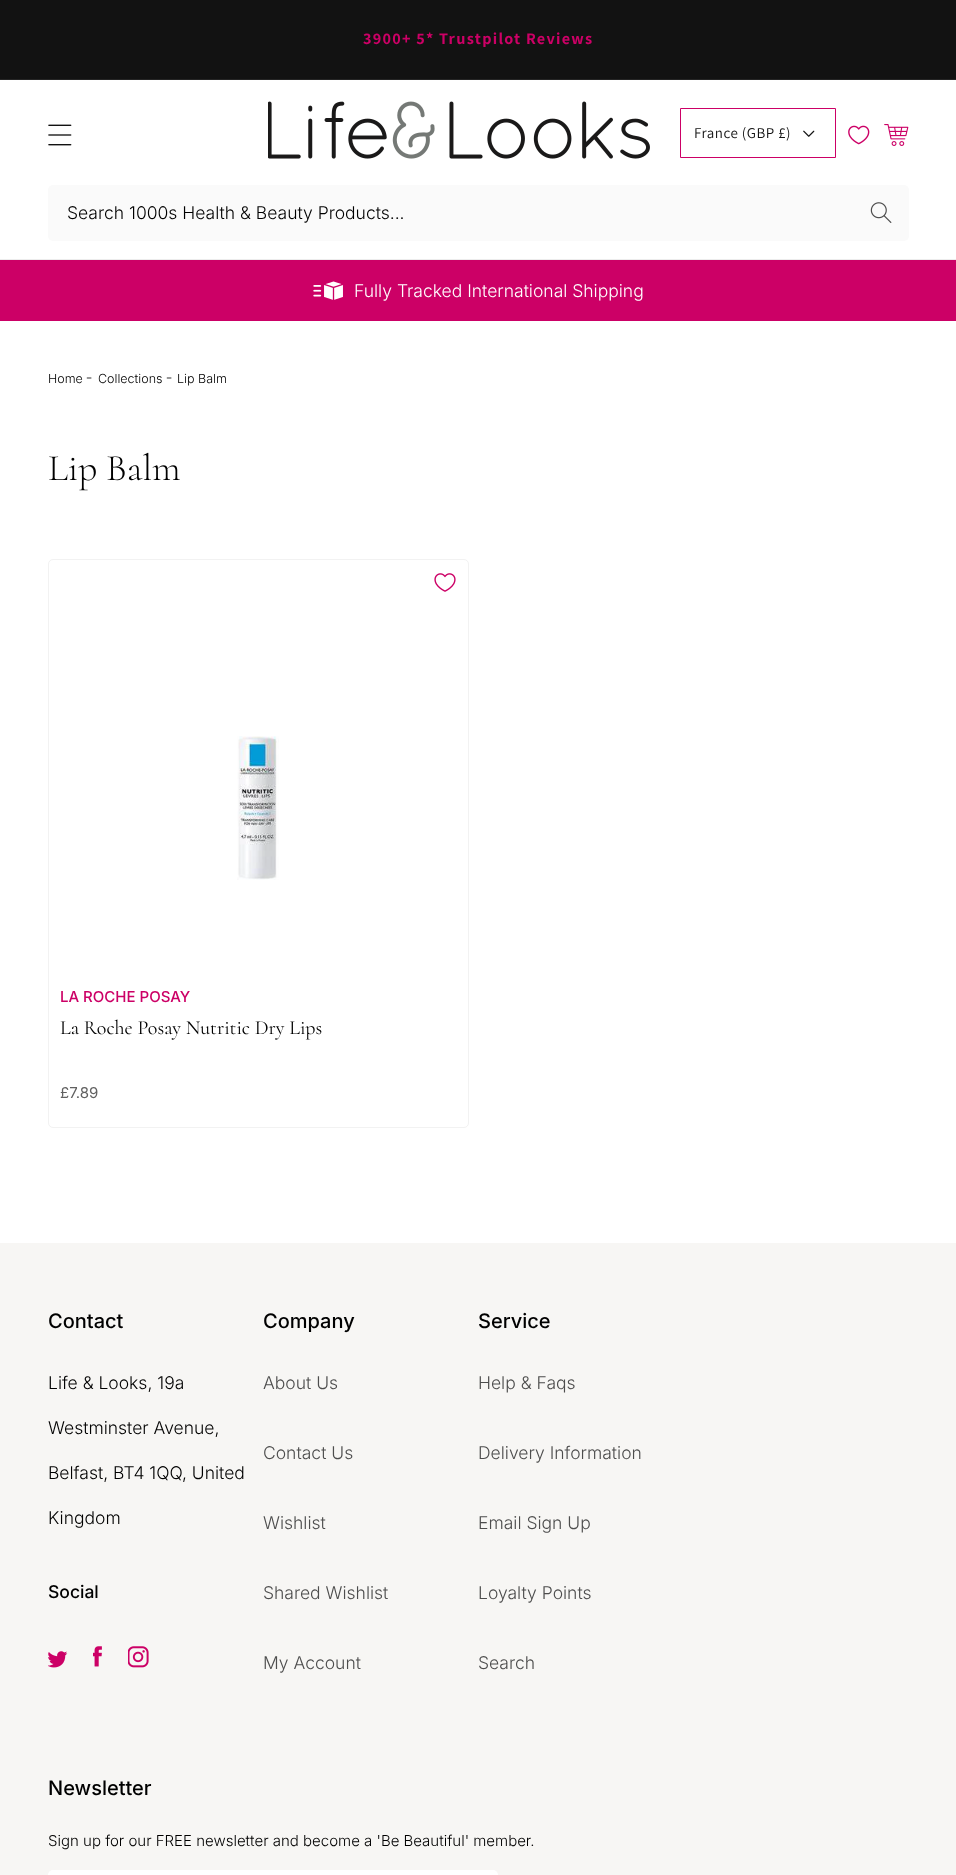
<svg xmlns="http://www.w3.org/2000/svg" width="956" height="1875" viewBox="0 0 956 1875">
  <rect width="100%" height="100%" fill="#fff"/>
  <path d="M0 0h956v79H0z" fill="#121212"/>
  <path d="M0 79h956v1H0z" fill="#252525"/>
  <path d="M0 259h956v1H0z" fill="#ececec"/>
  <image x="48" y="124" width="24" height="22" href="img/1.png"/>
  <image x="268" y="101" width="382" height="58" href="img/2.png"/>
  <path d="M680.5 108.5h155v49H680.5z" fill="none" stroke="#c06"/>
  <image x="803" y="130" width="12" height="7" href="img/3.png"/>
  <image x="848" y="125" width="22" height="20" href="img/4.png"/>
  <image x="884" y="124" width="25" height="22" href="img/5.png"/>
  <rect x="48" y="185" width="861" height="56" rx="5" fill="#fafafa"/>
  <image x="870" y="202" width="22" height="21" href="img/6.png"/>
  <path d="M0 260h956v61H0z" fill="#c06"/>
  <image x="313" y="281" width="30" height="19" href="img/7.png"/>
  <rect x="48.5" y="559.5" width="420" height="568" rx="4.5" fill="none" stroke="#f2f2f2"/>
  <image x="434" y="573" width="22" height="19" href="img/8.png"/>
  <image x="237" y="736" width="42" height="144" href="img/9.png"/>
  <path d="M0 1243h956v632H0z" fill="#f7f6f4"/>
  <image x="48" y="1651" width="20" height="17" href="img/10.png"/>
  <image x="93" y="1646" width="9" height="21" href="img/11.png"/>
  <image x="128" y="1646" width="21" height="22" href="img/12.png"/>
  <rect x="48" y="1870" width="450" height="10" rx="5" fill="#fff"/>
  <text x="363" y="44" font-family="Assistant" font-size="16.25" font-weight="bold" letter-spacing="1.25" fill="#c06">3900+ 5* Trustpilot Reviews</text>
  <text x="694" y="138" font-family="Assistant" font-size="15" letter-spacing="0.5" fill="#121212">France (GBP £)</text>
  <text x="67" y="219" font-family="Inter" font-size="17.5" font-weight="300" fill="#000">Search 1000s Health &amp; Beauty Products...</text>
  <text x="354" y="297" font-family="Inter" font-size="17.5" font-weight="300" fill="#fff">Fully Tracked International Shipping</text>
  <text x="48" y="383" font-family="Inter" font-size="12.5" font-weight="300" fill="#000">Home</text>
  <text x="86" y="383" font-family="Assistant" font-size="20" letter-spacing="1" fill="#4d4d4d">-</text>
  <text x="98" y="383" font-family="Inter" font-size="12.5" font-weight="300" fill="#000">Collections</text>
  <text x="166" y="383" font-family="Assistant" font-size="20" letter-spacing="1" fill="#4d4d4d">-</text>
  <text x="177" y="383" font-family="Inter" font-size="12.5" font-weight="300" fill="#000">Lip Balm</text>
  <text x="48" y="480" font-family="Cormorant" font-size="37.5" font-weight="300" fill="#000">Lip Balm</text>
  <text x="60" y="1002" font-family="Inter" font-size="15" font-weight="500" fill="#c06">LA ROCHE POSAY</text>
  <text x="60" y="1034" font-family="Cormorant" font-size="20" fill="#000">La Roche Posay Nutritic Dry Lips</text>
  <text x="60" y="1098" font-family="Inter" font-size="15" fill="#616161">£7.89</text>
  <text x="48" y="1328" font-family="Inter" font-size="20" font-weight="500" fill="#000">Contact</text>
  <g font-family="Inter" font-size="17.5" font-weight="300" fill="#000">
    <text x="48" y="1389">Life &amp; Looks, 19a</text>
    <text x="48" y="1434">Westminster Avenue,</text>
    <text x="48" y="1479">Belfast, BT4 1QQ, United</text>
    <text x="48" y="1524">Kingdom</text>
  </g>
  <text x="48" y="1598" font-family="Inter" font-size="17.5" font-weight="500" fill="#000">Social</text>
  <text x="263" y="1328" font-family="Inter" font-size="20" font-weight="500" fill="#000">Company</text>
  <g font-family="Inter" font-size="17.5" font-weight="300" fill="#4d4d4d">
    <text x="263" y="1389">About Us</text>
    <text x="263" y="1459">Contact Us</text>
    <text x="263" y="1529">Wishlist</text>
    <text x="263" y="1599">Shared Wishlist</text>
    <text x="263" y="1669">My Account</text>
  </g>
  <text x="478" y="1328" font-family="Inter" font-size="20" font-weight="500" fill="#000">Service</text>
  <g font-family="Inter" font-size="17.5" font-weight="300" fill="#4d4d4d">
    <text x="478" y="1389">Help &amp; Faqs</text>
    <text x="478" y="1459">Delivery Information</text>
    <text x="478" y="1529">Email Sign Up</text>
    <text x="478" y="1599">Loyalty Points</text>
    <text x="478" y="1669">Search</text>
  </g>
  <text x="48" y="1795" font-family="Inter" font-size="20" font-weight="500" fill="#000">Newsletter</text>
  <text x="48" y="1846" font-family="Inter" font-size="15" font-weight="300" fill="#000">Sign up for our FREE newsletter and become a 'Be Beautiful' member.</text>
</svg>
